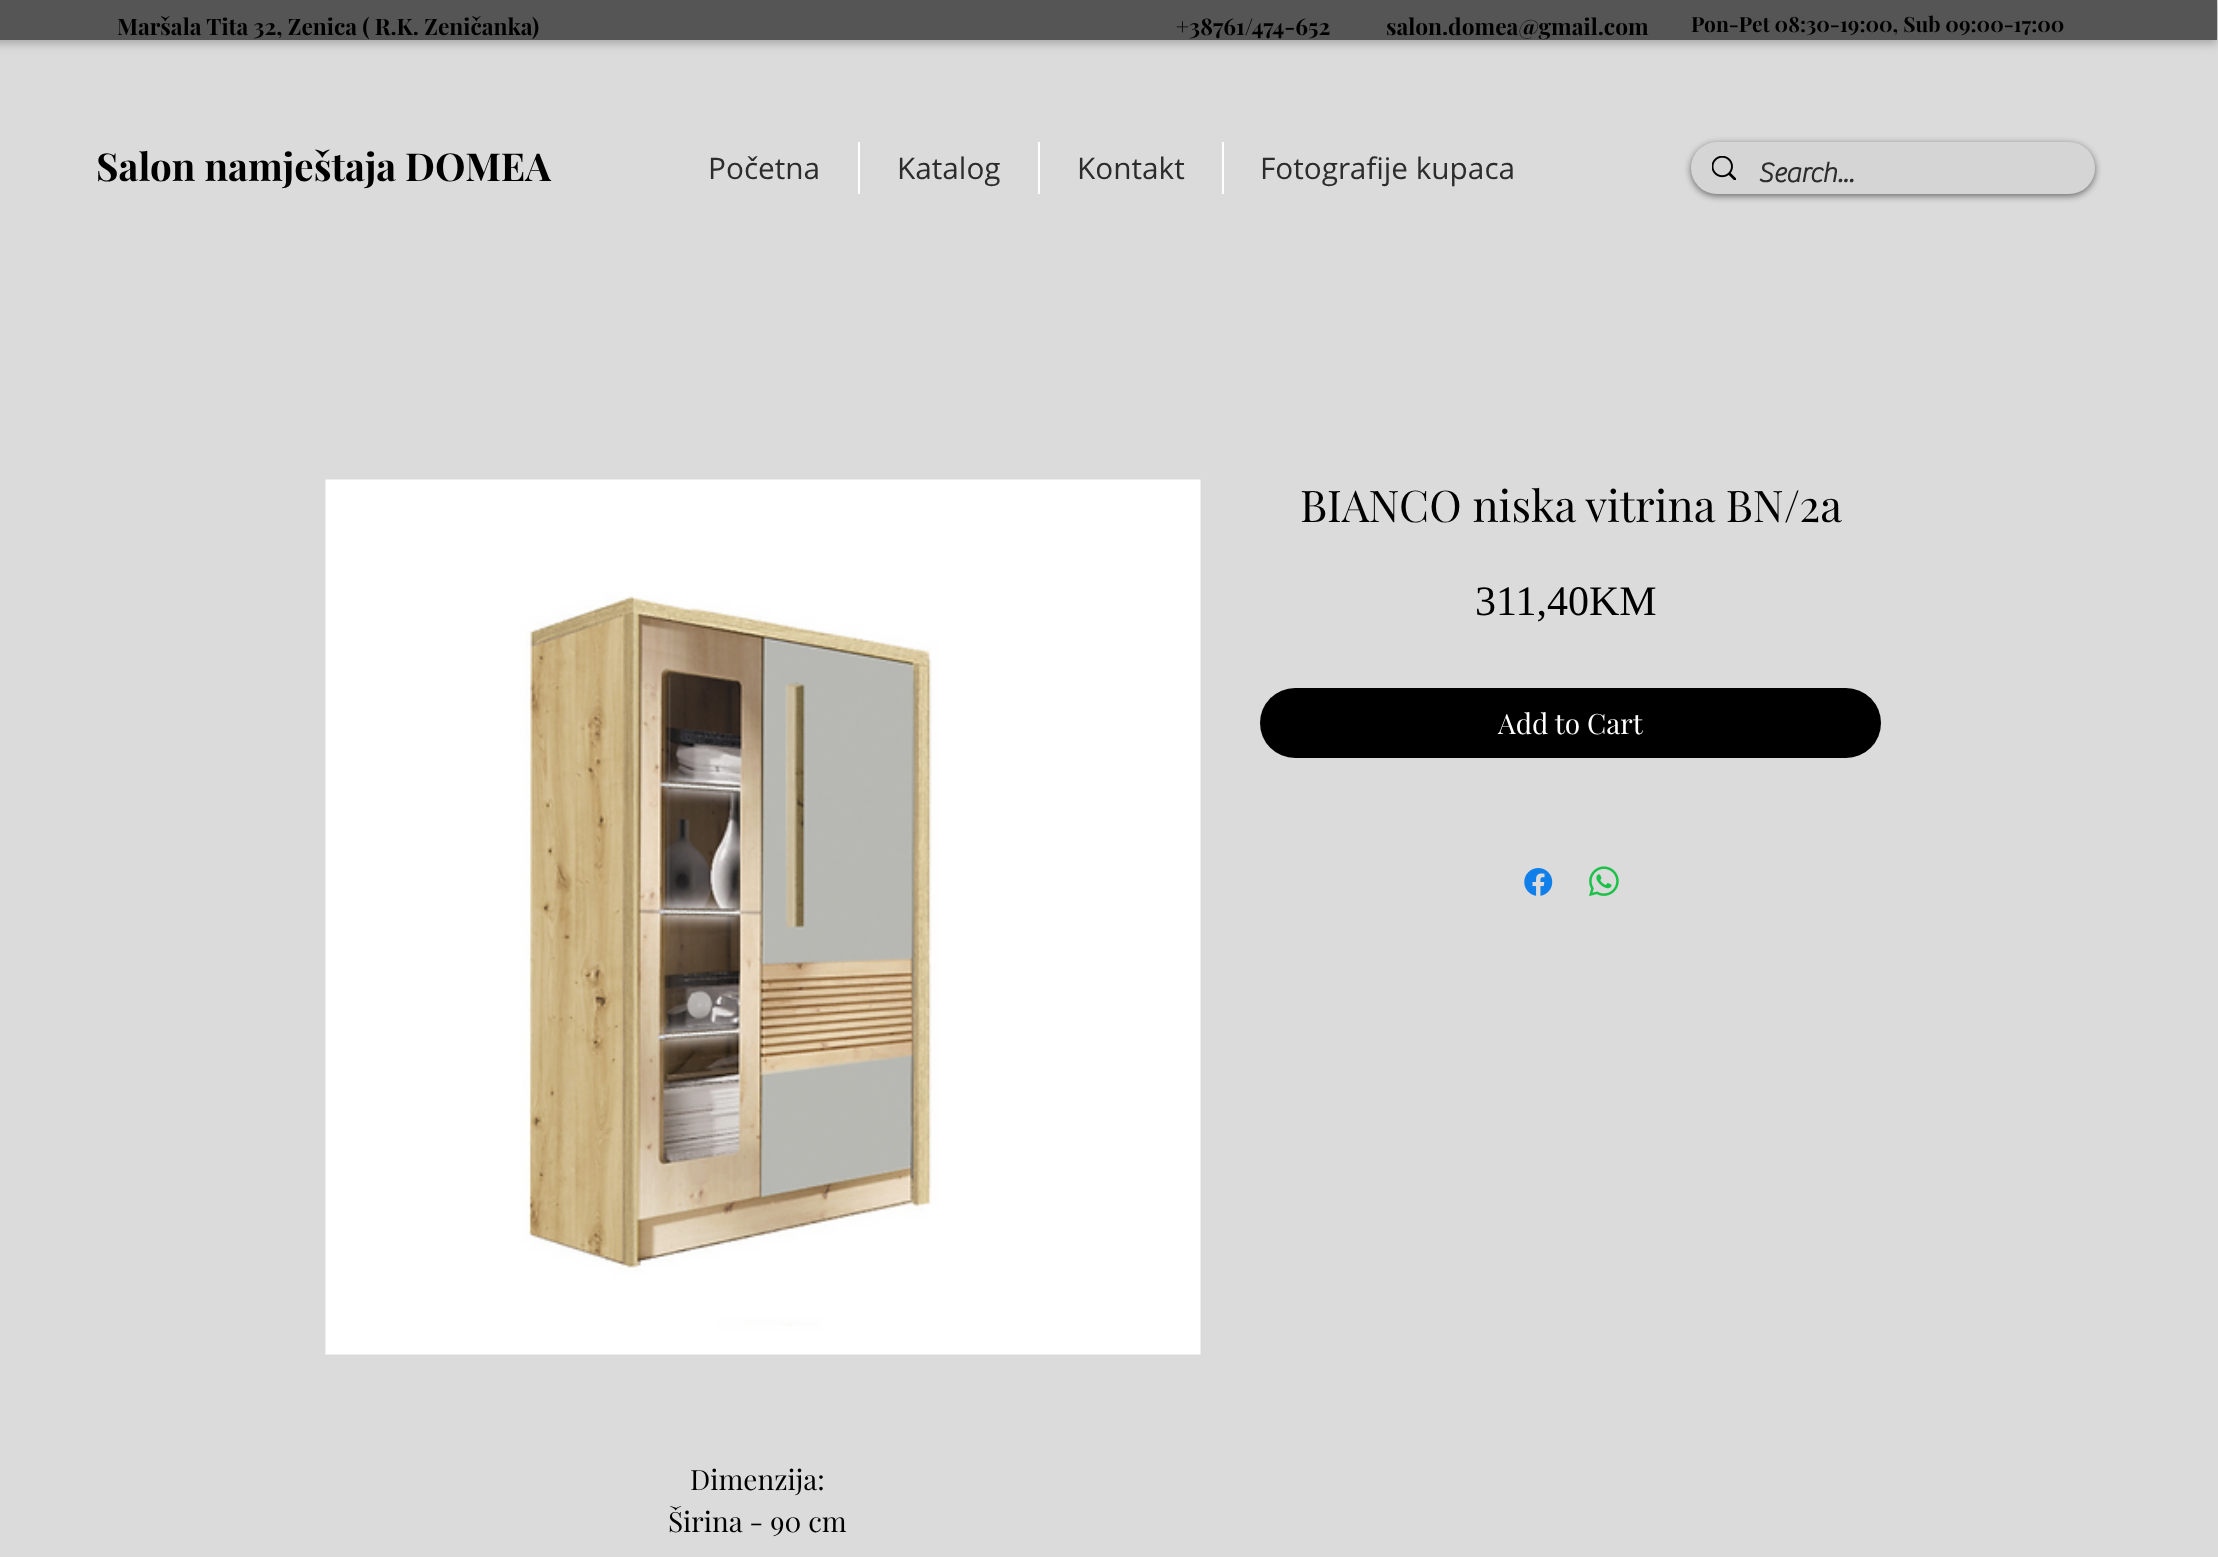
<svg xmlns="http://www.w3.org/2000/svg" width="2218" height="1557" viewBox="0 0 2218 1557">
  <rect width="100%" height="100%" fill="#dbdbdb"/>
  <path d="M-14 4h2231v40H-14z" fill="#aaa" filter="blur(4.5px)"/>
  <path d="M0 0h2217v40H0z" fill="#555"/>
  <path d="M858 142h2v52H858z" fill="#fff"/>
  <path d="M1038 142h2v52H1038z" fill="#fff"/>
  <path d="M1222 142h2v52H1222z" fill="#fff"/>
  <rect x="1691" y="144" width="404" height="52" rx="26" fill="#00000085" filter="blur(3.5px)"/>
  <rect x="1691" y="142" width="404" height="52" rx="26" fill="#d5d5d5"/>
  <image x="1712" y="156" width="24" height="24" href="img/1.png"/>
  <rect x="1260" y="688" width="621" height="70" rx="35" fill="#000"/>
  <image x="1524" y="868" width="29" height="28" href="img/2.png"/>
  <image x="1589" y="866" width="30" height="31" href="img/3.png"/>
  <image x="325" y="479" width="876" height="876" href="img/4.png"/>
  <g font-family="Playfair Display" font-size="22.75" font-weight="bold" fill="#000">
    <text x="117" y="35">Maršala Tita 32, Zenica ( R.K. Zeničanka)</text>
    <text x="1176" y="35">+38761/474-652</text>
    <text x="1386" y="35">salon.domea@gmail.com</text>
  </g>
  <text x="1691" y="32" font-family="Playfair Display" font-size="21" font-weight="bold" fill="#000">Pon-Pet 08:30-19:00, Sub 09:00-17:00</text>
  <text x="96" y="181" font-family="Playfair Display" font-size="38.5" font-weight="bold" fill="#000">Salon namještaja DOMEA</text>
  <g font-family="Open Sans" font-size="29.75" fill="#2c2c2c">
    <text x="708" y="179">Početna</text>
    <text x="897" y="179">Katalog</text>
    <text x="1077" y="179">Kontakt</text>
    <text x="1260" y="179">Fotografije kupaca</text>
  </g>
  <text x="1758" y="182" font-family="'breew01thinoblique'" font-size="28" font-weight="bold" fill="#2c2c2c">Search...</text>
  <text x="1300" y="522" font-family="Playfair Display" font-size="43.75" fill="#000">BIANCO niska vitrina BN/2a</text>
  <text x="1475" y="615" font-family="Liberation Serif" font-size="42" fill="#000">311,40KM</text>
  <text x="1498" y="734" font-family="Playfair Display" font-size="28" fill="#fff">Add to Cart</text>
  <g font-family="Playfair Display" font-size="28" fill="#000">
    <text x="690" y="1490">Dimenzija:</text>
    <text x="668" y="1532">Širina - 90 cm</text>
  </g>
</svg>
